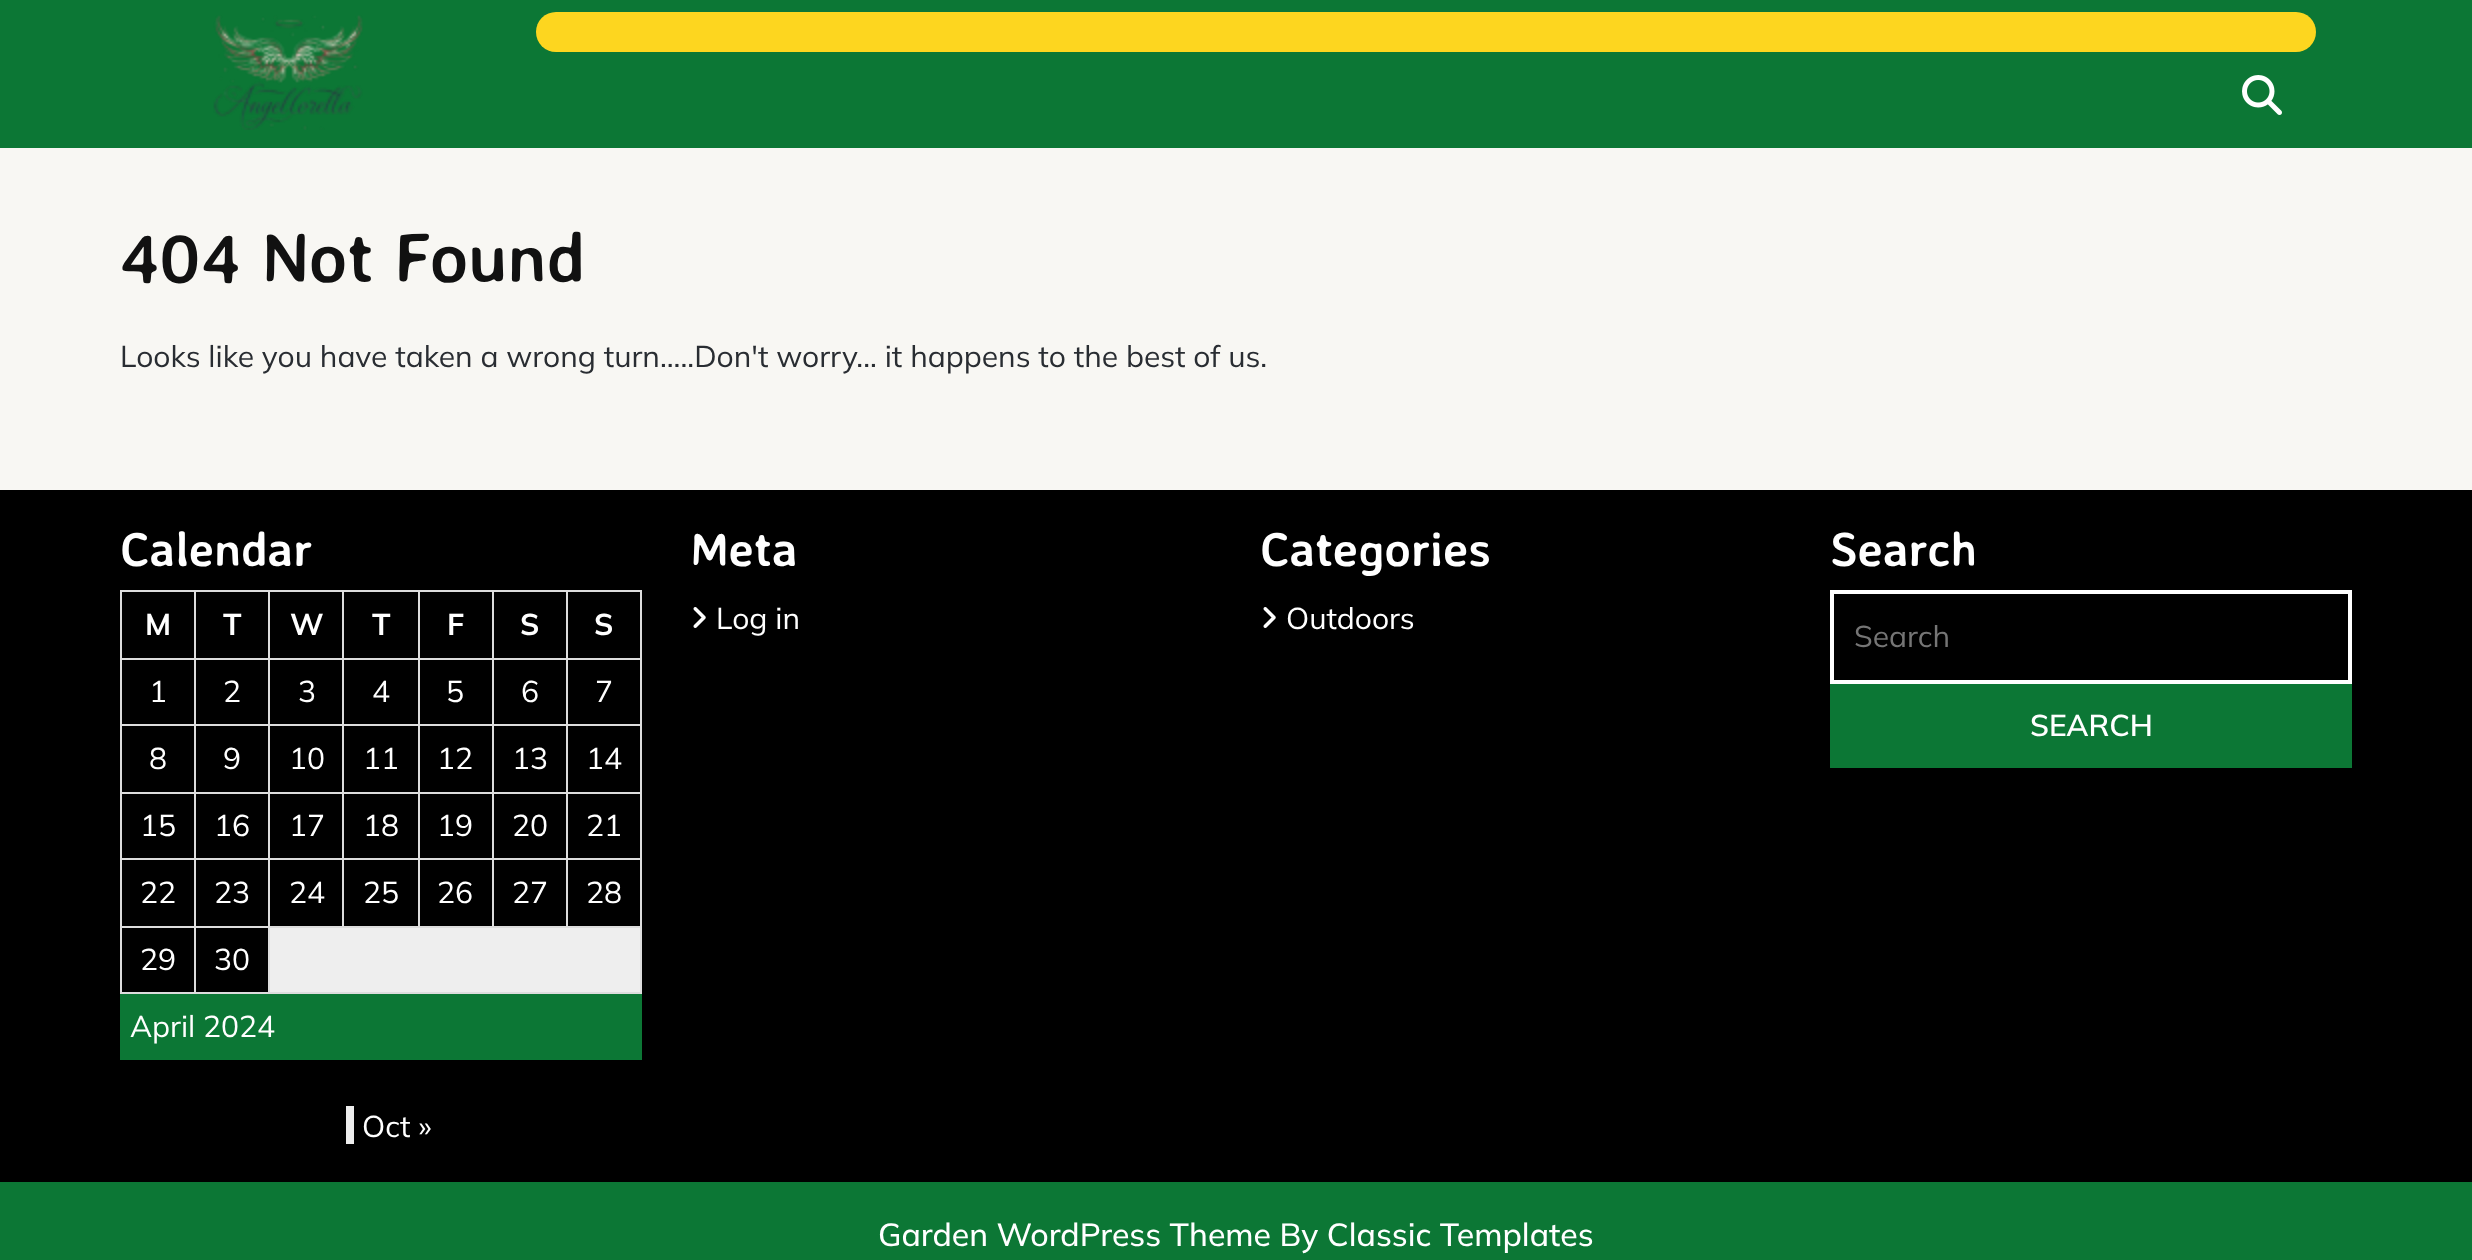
<svg xmlns="http://www.w3.org/2000/svg" width="2472" height="1260" viewBox="0 0 2472 1260">
  <rect width="100%" height="100%" fill="#f8f7f3"/>
  <path d="M0 0h2472v148H0z" fill="#0c7735"/>
  <image x="213" y="15" width="150" height="115" href="img/1.png"/>
  <rect x="536" y="12" width="1780" height="40" rx="20" fill="#fdd61f"/>
  <image x="2242" y="75" width="40" height="40" href="img/2.png"/>
  <path d="M0 490h2472v692H0z" fill="#000"/>
  <path d="M566 590h76v2H566z" fill="#ddd"/>
  <path d="M566 658h76v2H566z" fill="#ddd"/>
  <path d="M566 724h76v2H566z" fill="#ddd"/>
  <path d="M566 792h76v2H566z" fill="#ddd"/>
  <path d="M566 858h76v2H566z" fill="#ddd"/>
  <path d="M268 926h374v2H268z" fill="#ddd"/>
  <path d="M566 858h2v70H566z" fill="#ddd"/>
  <path d="M492 858h76v2H492z" fill="#ddd"/>
  <path d="M566 792h2v68H566z" fill="#ddd"/>
  <path d="M492 792h76v2H492z" fill="#ddd"/>
  <path d="M566 724h2v70H566z" fill="#ddd"/>
  <path d="M492 724h76v2H492z" fill="#ddd"/>
  <path d="M566 658h2v68H566z" fill="#ddd"/>
  <path d="M492 658h76v2H492z" fill="#ddd"/>
  <path d="M566 590h2v70H566z" fill="#ddd"/>
  <path d="M492 590h76v2H492z" fill="#ddd"/>
  <path d="M492 858h2v70H492z" fill="#ddd"/>
  <path d="M418 858h76v2H418z" fill="#ddd"/>
  <path d="M492 792h2v68H492z" fill="#ddd"/>
  <path d="M418 792h76v2H418z" fill="#ddd"/>
  <path d="M492 724h2v70H492z" fill="#ddd"/>
  <path d="M418 724h76v2H418z" fill="#ddd"/>
  <path d="M492 658h2v68H492z" fill="#ddd"/>
  <path d="M418 658h76v2H418z" fill="#ddd"/>
  <path d="M492 590h2v70H492z" fill="#ddd"/>
  <path d="M418 590h76v2H418z" fill="#ddd"/>
  <path d="M418 858h2v70H418z" fill="#ddd"/>
  <path d="M342 858h78v2H342z" fill="#ddd"/>
  <path d="M418 792h2v68H418z" fill="#ddd"/>
  <path d="M342 792h78v2H342z" fill="#ddd"/>
  <path d="M418 724h2v70H418z" fill="#ddd"/>
  <path d="M342 724h78v2H342z" fill="#ddd"/>
  <path d="M418 658h2v68H418z" fill="#ddd"/>
  <path d="M342 658h78v2H342z" fill="#ddd"/>
  <path d="M418 590h2v70H418z" fill="#ddd"/>
  <path d="M342 590h78v2H342z" fill="#ddd"/>
  <path d="M342 858h2v70H342z" fill="#ddd"/>
  <path d="M268 858h76v2H268z" fill="#ddd"/>
  <path d="M342 792h2v68H342z" fill="#ddd"/>
  <path d="M268 792h76v2H268z" fill="#ddd"/>
  <path d="M342 724h2v70H342z" fill="#ddd"/>
  <path d="M268 724h76v2H268z" fill="#ddd"/>
  <path d="M342 658h2v68H342z" fill="#ddd"/>
  <path d="M268 658h76v2H268z" fill="#ddd"/>
  <path d="M342 590h2v70H342z" fill="#ddd"/>
  <path d="M268 590h76v2H268z" fill="#ddd"/>
  <path d="M640 926h2v68H640z" fill="#ddd"/>
  <path d="M268 992h374v2H268z" fill="#ddd"/>
  <path d="M268 926h2v68H268z" fill="#ddd"/>
  <path d="M194 926h76v2H194z" fill="#ddd"/>
  <path d="M268 858h2v70H268z" fill="#ddd"/>
  <path d="M194 858h76v2H194z" fill="#ddd"/>
  <path d="M268 792h2v68H268z" fill="#ddd"/>
  <path d="M194 792h76v2H194z" fill="#ddd"/>
  <path d="M268 724h2v70H268z" fill="#ddd"/>
  <path d="M194 724h76v2H194z" fill="#ddd"/>
  <path d="M268 658h2v68H268z" fill="#ddd"/>
  <path d="M194 658h76v2H194z" fill="#ddd"/>
  <path d="M268 590h2v70H268z" fill="#ddd"/>
  <path d="M194 590h76v2H194z" fill="#ddd"/>
  <path d="M194 992h76v2H194z" fill="#ddd"/>
  <path d="M194 926h2v68H194z" fill="#ddd"/>
  <path d="M120 926h76v2H120z" fill="#ddd"/>
  <path d="M194 858h2v70H194z" fill="#ddd"/>
  <path d="M120 858h76v2H120z" fill="#ddd"/>
  <path d="M194 792h2v68H194z" fill="#ddd"/>
  <path d="M120 792h76v2H120z" fill="#ddd"/>
  <path d="M194 724h2v70H194z" fill="#ddd"/>
  <path d="M120 724h76v2H120z" fill="#ddd"/>
  <path d="M194 658h2v68H194z" fill="#ddd"/>
  <path d="M120 658h76v2H120z" fill="#ddd"/>
  <path d="M194 590h2v70H194z" fill="#ddd"/>
  <path d="M120 590h76v2H120z" fill="#ddd"/>
  <path d="M120 992h76v2H120z" fill="#ddd"/>
  <path d="M120 926h2v68H120z" fill="#ddd"/>
  <path d="M120 858h2v70H120z" fill="#ddd"/>
  <path d="M120 792h2v68H120z" fill="#ddd"/>
  <path d="M120 724h2v70H120z" fill="#ddd"/>
  <path d="M120 658h2v68H120z" fill="#ddd"/>
  <path d="M120 590h2v70H120z" fill="#ddd"/>
  <path d="M640 858h2v70H640z" fill="#ddd"/>
  <path d="M640 792h2v68H640z" fill="#ddd"/>
  <path d="M640 724h2v70H640z" fill="#ddd"/>
  <path d="M640 658h2v68H640z" fill="#ddd"/>
  <path d="M640 590h2v70H640z" fill="#ddd"/>
  <path d="M270 928h370v64H270z" fill="#eee"/>
  <path d="M120 994h522v66H120z" fill="#0c7735"/>
  <path d="M346 1106h8v38H346z" fill="#eee"/>
  <image x="693" y="607" width="13" height="21" href="img/3.png"/>
  <image x="1263" y="607" width="13" height="21" href="img/3.png"/>
  <path d="M1832 592h518v90H1832z" fill="none" stroke="#fff" stroke-width="4"/>
  <path d="M1830 684h522v84H1830z" fill="#0c7735"/>
  <path d="M0 1182h2472v78H0z" fill="#0c7735"/>
  <text x="120" y="282" font-family="Averia Sans Libre" font-size="70" font-weight="bold" fill="#111">404 Not Found</text>
  <text x="120" y="367" font-family="Mulish" font-size="30" fill="#292d32">Looks like you have taken a wrong turn.....Don't worry... it happens to the best of us.</text>
  <text x="120" y="566" font-family="Averia Sans Libre" font-size="48" font-weight="bold" fill="#fff">Calendar</text>
  <g font-family="Mulish" font-size="30" font-weight="bold" fill="#fff">
    <text x="145" y="635">M</text>
    <text x="223" y="635">T</text>
    <text x="290" y="635">W</text>
    <text x="372" y="635">T</text>
    <text x="447" y="635">F</text>
    <text x="520" y="635">S</text>
    <text x="594" y="635">S</text>
  </g>
  <g font-family="Mulish" font-size="30" fill="#fff">
    <text x="149" y="702">1</text>
    <text x="223" y="702">2</text>
    <text x="298" y="702">3</text>
    <text x="372" y="702">4</text>
    <text x="446" y="702">5</text>
    <text x="521" y="702">6</text>
    <text x="595" y="702">7</text>
    <text x="149" y="769">8</text>
    <text x="223" y="769">9</text>
    <text x="289" y="769">10</text>
    <text x="363" y="769">11</text>
    <text x="437" y="769">12</text>
    <text x="512" y="769">13</text>
    <text x="586" y="769">14</text>
    <text x="140" y="836">15</text>
    <text x="214" y="836">16</text>
    <text x="289" y="836">17</text>
    <text x="363" y="836">18</text>
    <text x="437" y="836">19</text>
    <text x="512" y="836">20</text>
    <text x="586" y="836">21</text>
    <text x="140" y="903">22</text>
    <text x="214" y="903">23</text>
    <text x="289" y="903">24</text>
    <text x="363" y="903">25</text>
    <text x="437" y="903">26</text>
    <text x="512" y="903">27</text>
    <text x="586" y="903">28</text>
    <text x="140" y="970">29</text>
    <text x="214" y="970">30</text>
    <text x="130" y="1037">April 2024</text>
    <text x="362" y="1137">Oct »</text>
  </g>
  <text x="690" y="566" font-family="Averia Sans Libre" font-size="48" font-weight="bold" fill="#fff">Meta</text>
  <text x="716" y="629" font-family="Mulish" font-size="30" fill="#fff">Log in</text>
  <text x="1260" y="566" font-family="Averia Sans Libre" font-size="48" font-weight="bold" fill="#fff">Categories</text>
  <text x="1286" y="629" font-family="Mulish" font-size="30" fill="#fff">Outdoors</text>
  <text x="1830" y="566" font-family="Averia Sans Libre" font-size="48" font-weight="bold" fill="#fff">Search</text>
  <text x="1854" y="647" font-family="Mulish" font-size="30" fill="#757575">Search</text>
  <text x="2030" y="736" font-family="Mulish" font-size="30" font-weight="600" fill="#fff">SEARCH</text>
  <text x="878" y="1246" font-family="Mulish" font-size="32" font-weight="500" fill="#fff">Garden WordPress Theme By Classic Templates</text>
</svg>
